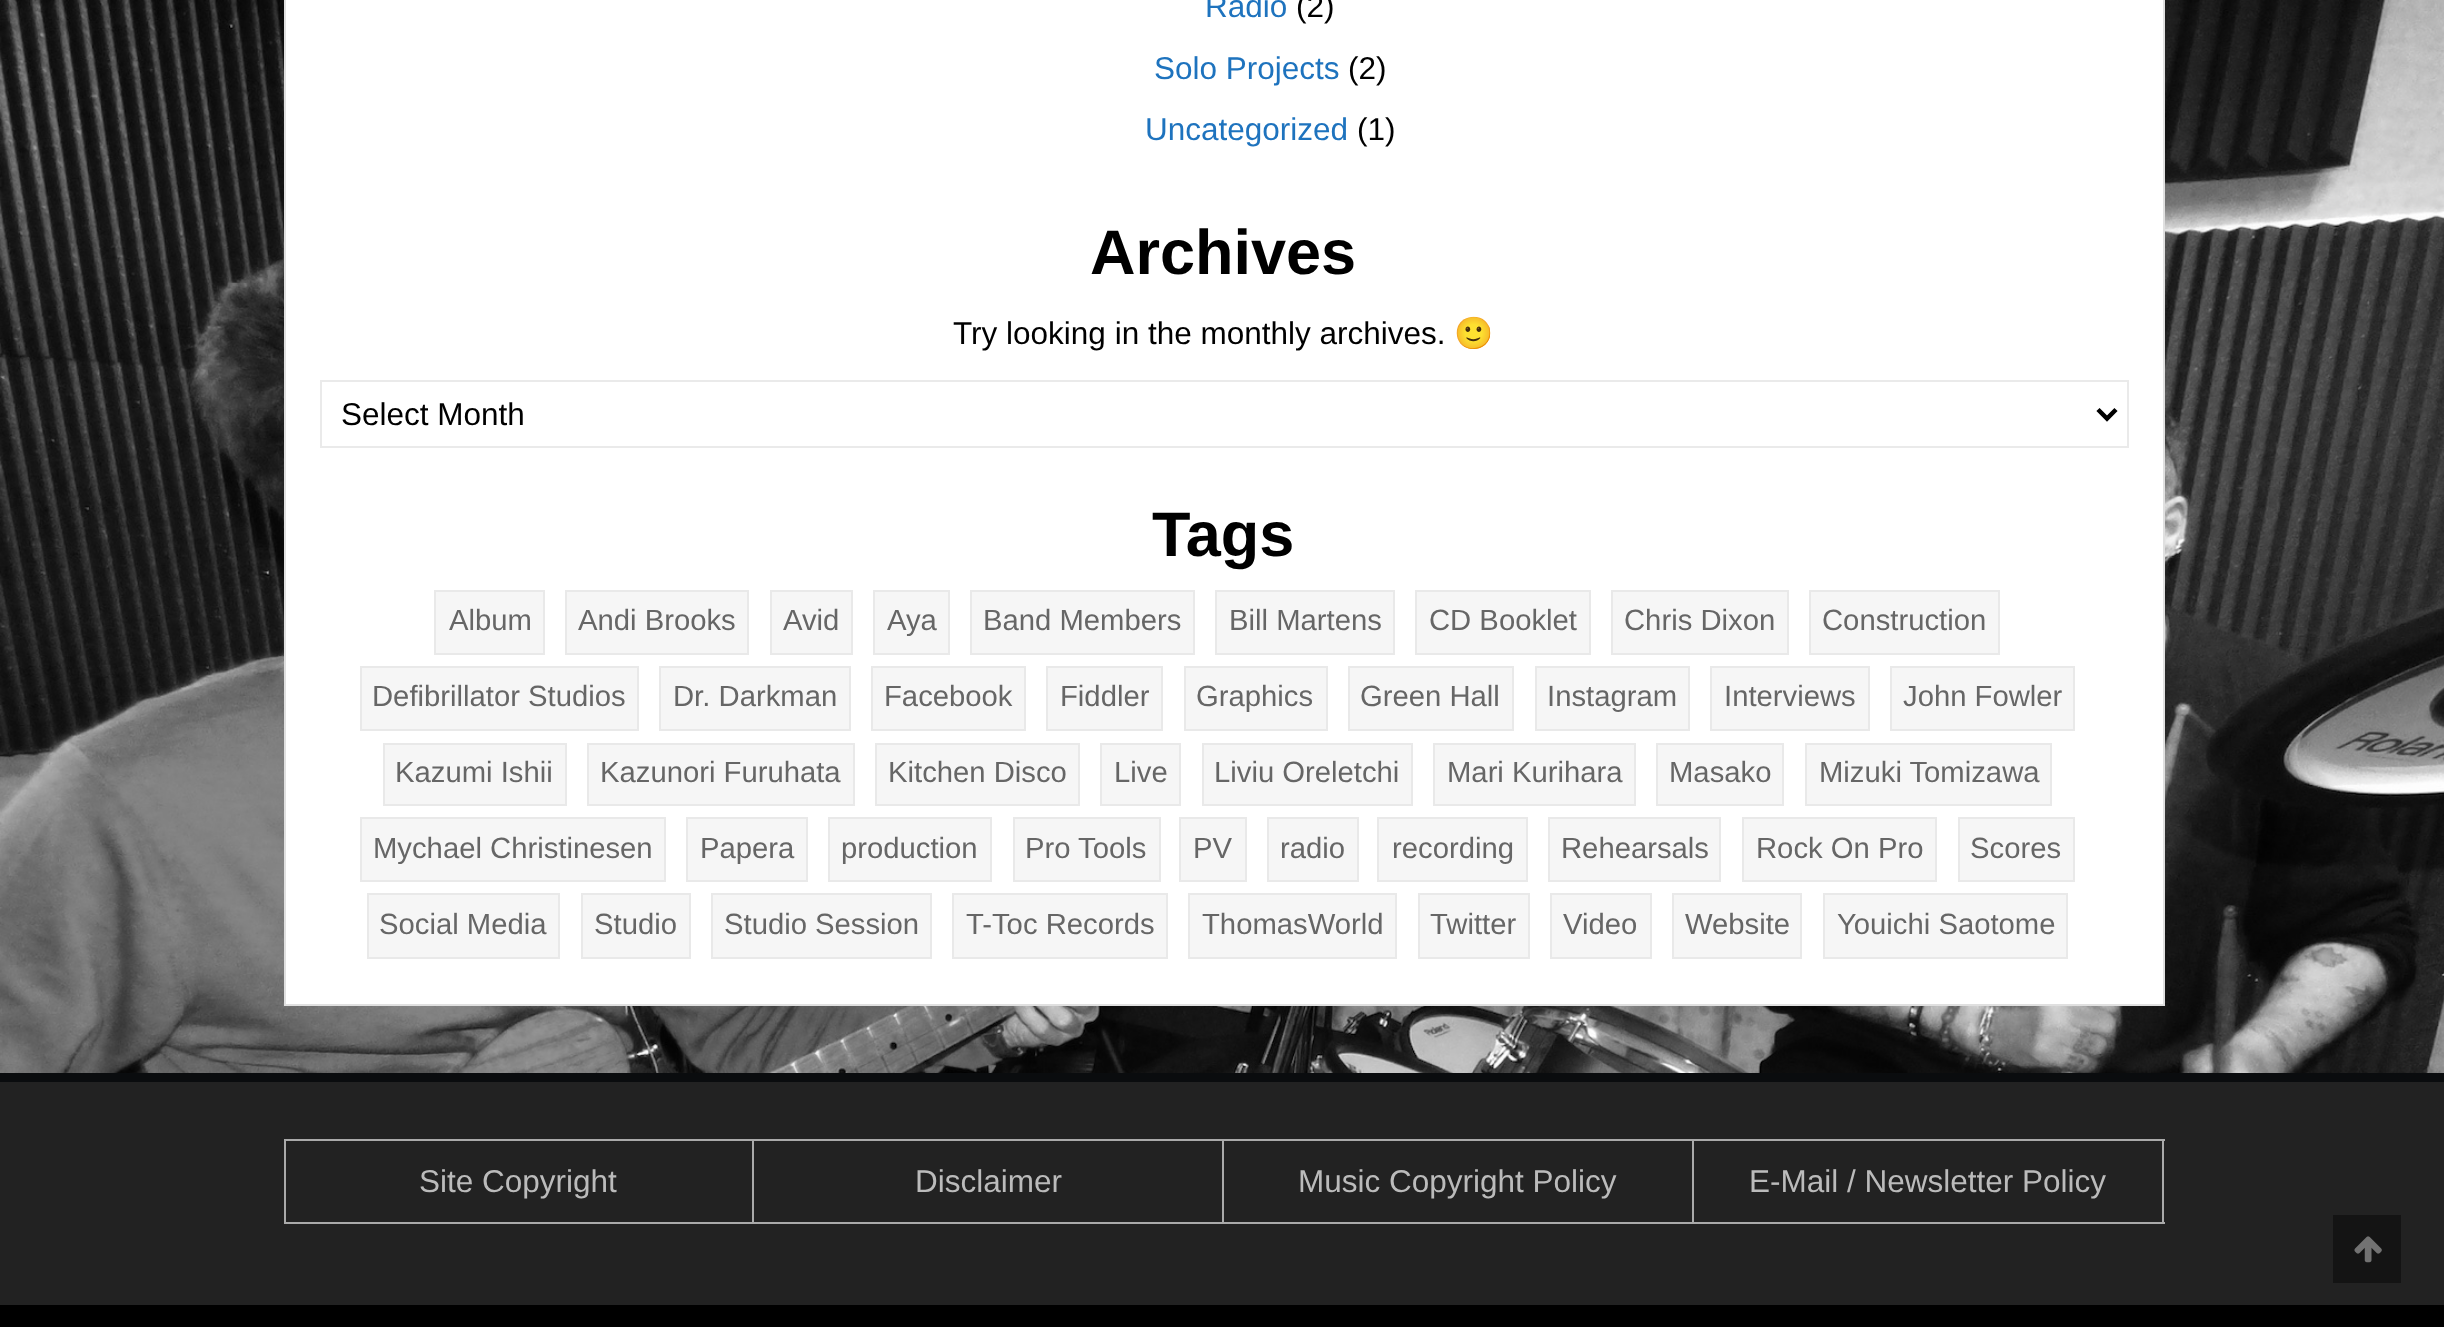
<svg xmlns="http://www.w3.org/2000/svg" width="2444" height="1327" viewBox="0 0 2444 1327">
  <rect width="100%" height="100%" fill="#fff"/>
  <image x="0" y="0" width="2444" height="1073" href="img/1.png"/>
  <path d="M285 -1h1879v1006H285z" fill="#fff" stroke="#e0e0e0" stroke-width="2"/>
  <path d="M321 381h1807v66H321z" fill="none" stroke="#eaeaea" stroke-width="2"/>
  <path d="M2098 409.5L2107 418.5L2116 409.5" fill="none" stroke="#000" stroke-width="4.5"/>
  <path d="M435 591h109v63H435z" fill="#f6f6f6" stroke="#e9e9e9" stroke-width="2"/>
  <path d="M566 591h182v63H566z" fill="#f6f6f6" stroke="#e9e9e9" stroke-width="2"/>
  <path d="M771 591h81v63H771z" fill="#f6f6f6" stroke="#e9e9e9" stroke-width="2"/>
  <path d="M874 591h75v63H874z" fill="#f6f6f6" stroke="#e9e9e9" stroke-width="2"/>
  <path d="M971 591h223v63H971z" fill="#f6f6f6" stroke="#e9e9e9" stroke-width="2"/>
  <path d="M1216 591h178v63H1216z" fill="#f6f6f6" stroke="#e9e9e9" stroke-width="2"/>
  <path d="M1416 591h174v63H1416z" fill="#f6f6f6" stroke="#e9e9e9" stroke-width="2"/>
  <path d="M1612 591h176v63H1612z" fill="#f6f6f6" stroke="#e9e9e9" stroke-width="2"/>
  <path d="M1810 591h189v63H1810z" fill="#f6f6f6" stroke="#e9e9e9" stroke-width="2"/>
  <path d="M361 667h277v63H361z" fill="#f6f6f6" stroke="#e9e9e9" stroke-width="2"/>
  <path d="M660 667h190v63H660z" fill="#f6f6f6" stroke="#e9e9e9" stroke-width="2"/>
  <path d="M872 667h153v63H872z" fill="#f6f6f6" stroke="#e9e9e9" stroke-width="2"/>
  <path d="M1047 667h115v63H1047z" fill="#f6f6f6" stroke="#e9e9e9" stroke-width="2"/>
  <path d="M1185 667h142v63H1185z" fill="#f6f6f6" stroke="#e9e9e9" stroke-width="2"/>
  <path d="M1349 667h164v63H1349z" fill="#f6f6f6" stroke="#e9e9e9" stroke-width="2"/>
  <path d="M1536 667h153v63H1536z" fill="#f6f6f6" stroke="#e9e9e9" stroke-width="2"/>
  <path d="M1711 667h158v63H1711z" fill="#f6f6f6" stroke="#e9e9e9" stroke-width="2"/>
  <path d="M1891 667h183v63H1891z" fill="#f6f6f6" stroke="#e9e9e9" stroke-width="2"/>
  <path d="M384 744h182v61H384z" fill="#f6f6f6" stroke="#e9e9e9" stroke-width="2"/>
  <path d="M588 744h266v61H588z" fill="#f6f6f6" stroke="#e9e9e9" stroke-width="2"/>
  <path d="M876 744h203v61H876z" fill="#f6f6f6" stroke="#e9e9e9" stroke-width="2"/>
  <path d="M1101 744h79v61H1101z" fill="#f6f6f6" stroke="#e9e9e9" stroke-width="2"/>
  <path d="M1203 744h209v61H1203z" fill="#f6f6f6" stroke="#e9e9e9" stroke-width="2"/>
  <path d="M1434 744h201v61H1434z" fill="#f6f6f6" stroke="#e9e9e9" stroke-width="2"/>
  <path d="M1657 744h126v61H1657z" fill="#f6f6f6" stroke="#e9e9e9" stroke-width="2"/>
  <path d="M1806 744h245v61H1806z" fill="#f6f6f6" stroke="#e9e9e9" stroke-width="2"/>
  <path d="M361 818h304v63H361z" fill="#f6f6f6" stroke="#e9e9e9" stroke-width="2"/>
  <path d="M687 818h120v63H687z" fill="#f6f6f6" stroke="#e9e9e9" stroke-width="2"/>
  <path d="M829 818h162v63H829z" fill="#f6f6f6" stroke="#e9e9e9" stroke-width="2"/>
  <path d="M1014 818h146v63H1014z" fill="#f6f6f6" stroke="#e9e9e9" stroke-width="2"/>
  <path d="M1180 818h66v63H1180z" fill="#f6f6f6" stroke="#e9e9e9" stroke-width="2"/>
  <path d="M1268 818h90v63H1268z" fill="#f6f6f6" stroke="#e9e9e9" stroke-width="2"/>
  <path d="M1378 818h149v63H1378z" fill="#f6f6f6" stroke="#e9e9e9" stroke-width="2"/>
  <path d="M1549 818h171v63H1549z" fill="#f6f6f6" stroke="#e9e9e9" stroke-width="2"/>
  <path d="M1743 818h193v63H1743z" fill="#f6f6f6" stroke="#e9e9e9" stroke-width="2"/>
  <path d="M1959 818h115v63H1959z" fill="#f6f6f6" stroke="#e9e9e9" stroke-width="2"/>
  <path d="M368 894h191v64H368z" fill="#f6f6f6" stroke="#e9e9e9" stroke-width="2"/>
  <path d="M582 894h108v64H582z" fill="#f6f6f6" stroke="#e9e9e9" stroke-width="2"/>
  <path d="M712 894h219v64H712z" fill="#f6f6f6" stroke="#e9e9e9" stroke-width="2"/>
  <path d="M953 894h214v64H953z" fill="#f6f6f6" stroke="#e9e9e9" stroke-width="2"/>
  <path d="M1189 894h207v64H1189z" fill="#f6f6f6" stroke="#e9e9e9" stroke-width="2"/>
  <path d="M1419 894h110v64H1419z" fill="#f6f6f6" stroke="#e9e9e9" stroke-width="2"/>
  <path d="M1551 894h100v64H1551z" fill="#f6f6f6" stroke="#e9e9e9" stroke-width="2"/>
  <path d="M1673 894h128v64H1673z" fill="#f6f6f6" stroke="#e9e9e9" stroke-width="2"/>
  <path d="M1824 894h243v64H1824z" fill="#f6f6f6" stroke="#e9e9e9" stroke-width="2"/>
  <path d="M0 1082h2444v223H0z" fill="#222"/>
  <path d="M0 1073h2444v9H0z" fill="#0a0c0e"/>
  <path d="M1692 1139h473v2H1692z" fill="#aaa"/>
  <path d="M2162 1139h2v85H2162z" fill="#aaa"/>
  <path d="M1692 1222h473v2H1692z" fill="#aaa"/>
  <path d="M1692 1139h2v85H1692z" fill="#aaa"/>
  <path d="M1222 1139h472v2H1222z" fill="#aaa"/>
  <path d="M1222 1222h472v2H1222z" fill="#aaa"/>
  <path d="M1222 1139h2v85H1222z" fill="#aaa"/>
  <path d="M752 1139h472v2H752z" fill="#aaa"/>
  <path d="M752 1222h472v2H752z" fill="#aaa"/>
  <path d="M752 1139h2v85H752z" fill="#aaa"/>
  <path d="M284 1139h470v2H284z" fill="#aaa"/>
  <path d="M284 1222h470v2H284z" fill="#aaa"/>
  <path d="M284 1139h2v85H284z" fill="#aaa"/>
  <path d="M2333 1215h68v68H2333z" fill="#141414"/>
  <image x="2354" y="1236" width="28" height="27" href="img/2.png"/>
  <path d="M0 1305h2444v22H0z" fill="#000"/>
  <text x="1205" y="17" font-family="Liberation Sans" font-size="31.5" fill="#1e73be">Radio</text>
  <text x="1296" y="17" font-family="Liberation Sans" font-size="31.5" fill="#000">(2)</text>
  <text x="1154" y="79" font-family="Liberation Sans" font-size="31.5" fill="#1e73be">Solo Projects</text>
  <text x="1348" y="79" font-family="Liberation Sans" font-size="31.5" fill="#000">(2)</text>
  <text x="1145" y="140" font-family="Liberation Sans" font-size="31.5" fill="#1e73be">Uncategorized</text>
  <text x="1357" y="140" font-family="Liberation Sans" font-size="31.5" fill="#000">(1)</text>
  <text x="1090" y="274" font-family="Liberation Sans" font-size="63" font-weight="bold" fill="#000">Archives</text>
  <text x="953" y="344" font-family="Liberation Sans" font-size="31.5" fill="#000">Try looking in the monthly archives.</text>
  <text x="1454" y="344" font-family="Noto Color Emoji" font-size="31.5" fill="#000">🙂</text>
  <text x="341" y="425" font-family="Liberation Sans" font-size="31.5" fill="#000">Select Month</text>
  <text x="1152" y="556" font-family="Liberation Sans" font-size="63" font-weight="bold" fill="#000">Tags</text>
  <g font-family="Liberation Sans" font-size="29.25" fill="#666">
    <text x="449" y="630">Album</text>
    <text x="578" y="630">Andi Brooks</text>
    <text x="783" y="630">Avid</text>
    <text x="887" y="630">Aya</text>
    <text x="983" y="630">Band Members</text>
    <text x="1229" y="630">Bill Martens</text>
    <text x="1429" y="630">CD Booklet</text>
    <text x="1624" y="630">Chris Dixon</text>
    <text x="1822" y="630">Construction</text>
    <text x="372" y="706">Defibrillator Studios</text>
    <text x="673" y="706">Dr. Darkman</text>
    <text x="884" y="706">Facebook</text>
    <text x="1060" y="706">Fiddler</text>
    <text x="1196" y="706">Graphics</text>
    <text x="1360" y="706">Green Hall</text>
    <text x="1547" y="706">Instagram</text>
    <text x="1724" y="706">Interviews</text>
    <text x="1903" y="706">John Fowler</text>
    <text x="395" y="782">Kazumi Ishii</text>
    <text x="600" y="782">Kazunori Furuhata</text>
    <text x="888" y="782">Kitchen Disco</text>
    <text x="1114" y="782">Live</text>
    <text x="1214" y="782">Liviu Oreletchi</text>
    <text x="1447" y="782">Mari Kurihara</text>
    <text x="1669" y="782">Masako</text>
    <text x="1819" y="782">Mizuki Tomizawa</text>
    <text x="373" y="858">Mychael Christinesen</text>
    <text x="700" y="858">Papera</text>
    <text x="841" y="858">production</text>
    <text x="1025" y="858">Pro Tools</text>
    <text x="1193" y="858">PV</text>
    <text x="1280" y="858">radio</text>
    <text x="1392" y="858">recording</text>
    <text x="1561" y="858">Rehearsals</text>
    <text x="1756" y="858">Rock On Pro</text>
    <text x="1970" y="858">Scores</text>
    <text x="379" y="934">Social Media</text>
    <text x="594" y="934">Studio</text>
    <text x="724" y="934">Studio Session</text>
    <text x="966" y="934">T-Toc Records</text>
    <text x="1202" y="934">ThomasWorld</text>
    <text x="1430" y="934">Twitter</text>
    <text x="1563" y="934">Video</text>
    <text x="1685" y="934">Website</text>
    <text x="1837" y="934">Youichi Saotome</text>
  </g>
  <g font-family="Liberation Sans" font-size="31.5" fill="#bbb">
    <text x="419" y="1192">Site Copyright</text>
    <text x="915" y="1192">Disclaimer</text>
    <text x="1298" y="1192">Music Copyright Policy</text>
    <text x="1749" y="1192">E-Mail / Newsletter Policy</text>
  </g>
</svg>
